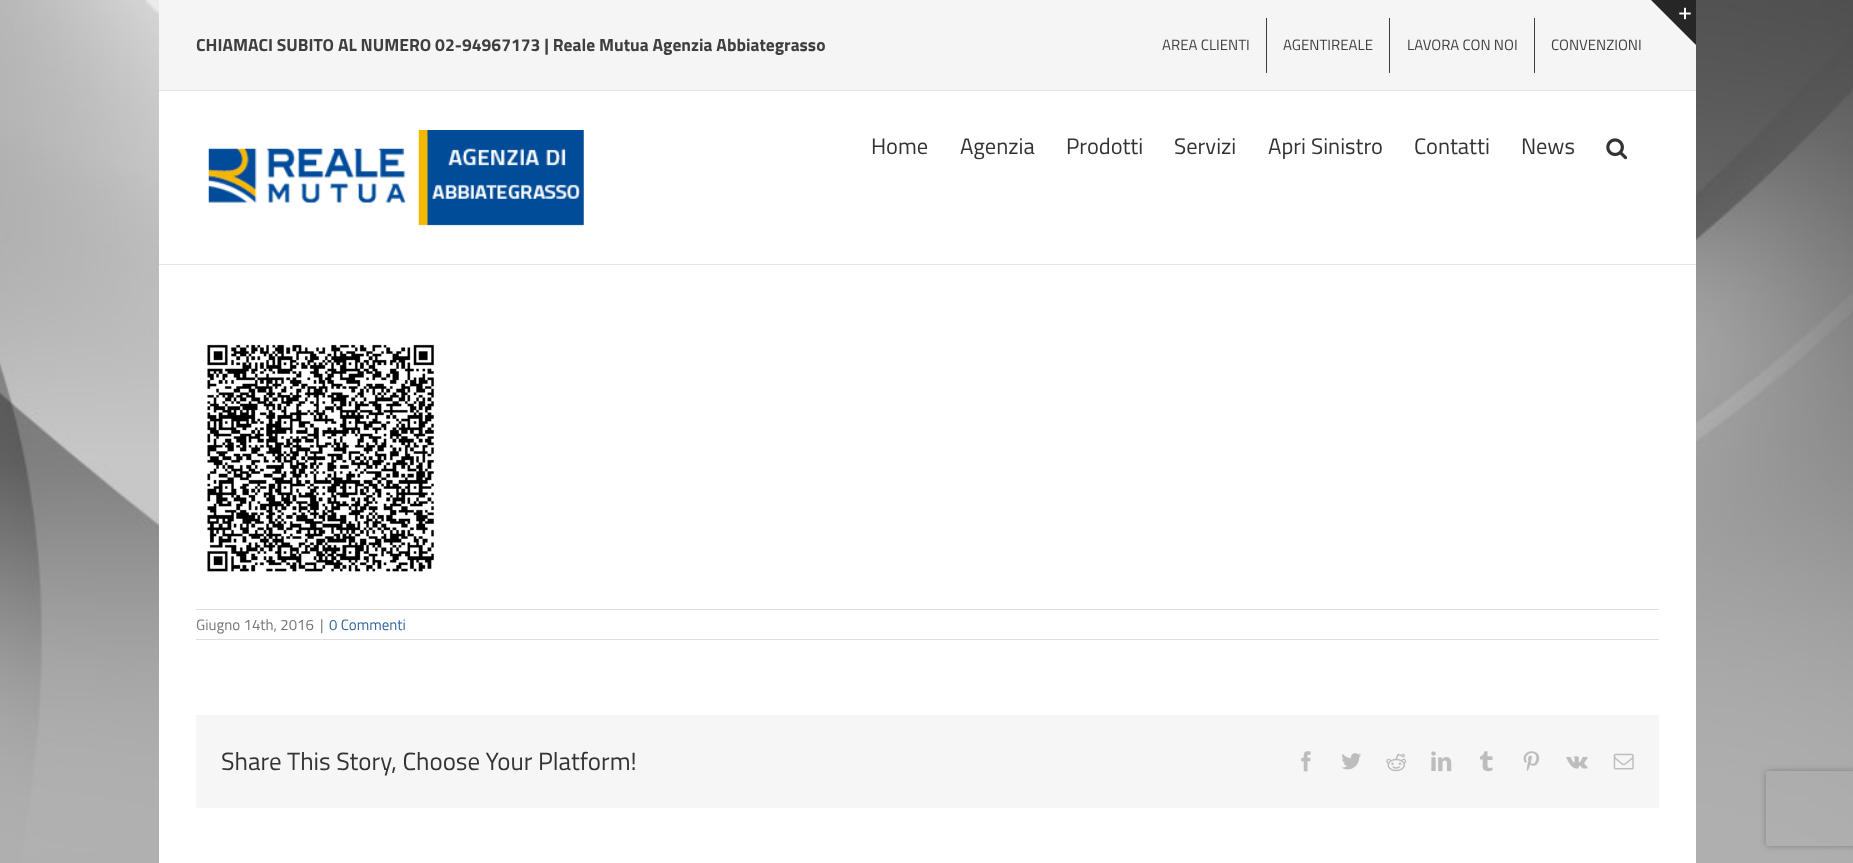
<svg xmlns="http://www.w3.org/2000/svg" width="1853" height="863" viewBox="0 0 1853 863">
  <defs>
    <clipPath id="clip1"><path d="M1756 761H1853V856H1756ZM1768.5 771H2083.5C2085 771 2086 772 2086 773.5V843.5C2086 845 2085 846 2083.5 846H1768.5C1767 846 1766 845 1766 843.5V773.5C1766 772 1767 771 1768.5 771Z" clip-rule="evenodd"/></clipPath>
  </defs>
  <rect width="100%" height="100%" fill="#fff"/>
  <image x="0" y="0" width="1853" height="863" href="img/1.png"/>
  <path d="M159 0h1537v90H159z" fill="#f5f5f5"/>
  <path d="M1651 0H1696V45Z" fill="#262626"/>
  <image x="1679" y="7" width="12" height="13" href="img/2.png"/>
  <path d="M159 90h1537v1H159z" fill="#e5e5e5"/>
  <path d="M1266 18h1v55H1266z" fill="#3f3f3f"/>
  <path d="M1389 18h1v55H1389z" fill="#3f3f3f"/>
  <path d="M1534 18h1v55H1534z" fill="#3f3f3f"/>
  <path d="M159 91h1537v173H159z" fill="#fff"/>
  <path d="M159 264h1537v1H159z" fill="#e5e5e5"/>
  <image x="208" y="130" width="376" height="96" href="img/3.png"/>
  <image x="1606" y="138" width="22" height="22" href="img/4.png"/>
  <path d="M159 265h1537v598H159z" fill="#fff"/>
  <image x="207" y="344" width="227" height="228" href="img/5.png"/>
  <path d="M196 609h1463v1H196z" fill="#e0dede"/>
  <path d="M196 639h1463v1H196z" fill="#e0dede"/>
  <path d="M196 715h1463v93H196z" fill="#f6f6f6"/>
  <image x="1301" y="751" width="10" height="21" href="img/6.png"/>
  <image x="1341" y="753" width="20" height="17" href="img/7.png"/>
  <image x="1386" y="753" width="21" height="19" href="img/8.png"/>
  <image x="1431" y="751" width="21" height="21" href="img/9.png"/>
  <image x="1480" y="751" width="13" height="21" href="img/10.png"/>
  <image x="1523" y="751" width="17" height="20" href="img/11.png"/>
  <image x="1566" y="756" width="22" height="13" href="img/12.png"/>
  <image x="1613" y="753" width="21" height="17" href="img/13.png"/>
  <g clip-path="url(#clip1)">
    <rect x="1766" y="771" width="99" height="75" rx="2.5" fill="#808080" filter="blur(3px)"/>
  </g>
  <text x="196" y="51" font-family="Titillium Web" font-size="17.55" font-weight="bold" fill="#3f3f3f">CHIAMACI SUBITO AL NUMERO 02-94967173 | Reale Mutua Agenzia Abbiategrasso</text>
  <g font-family="Titillium Web" font-size="15" fill="#3f3f3f">
    <text x="1162" y="50">AREA CLIENTI</text>
    <text x="1283" y="50">AGENTIREALE</text>
    <text x="1407" y="50">LAVORA CON NOI</text>
    <text x="1551" y="50">CONVENZIONI</text>
  </g>
  <g font-family="Titillium Web" font-size="22.5" fill="#333">
    <text x="871" y="154">Home</text>
    <text x="960" y="154">Agenzia</text>
    <text x="1066" y="154">Prodotti</text>
    <text x="1174" y="154">Servizi</text>
    <text x="1268" y="154">Apri Sinistro</text>
    <text x="1414" y="154">Contatti</text>
    <text x="1521" y="154">News</text>
  </g>
  <g font-family="Titillium Web" font-size="15" fill="#747474">
    <text x="196" y="630">Giugno 14th, 2016</text>
    <text x="320" y="630">|</text>
  </g>
  <text x="329" y="630" font-family="Titillium Web" font-size="15" fill="#369">0 Commenti</text>
  <text x="221" y="770" font-family="Titillium Web" font-size="25" fill="#333">Share This Story, Choose Your Platform!</text>
</svg>
